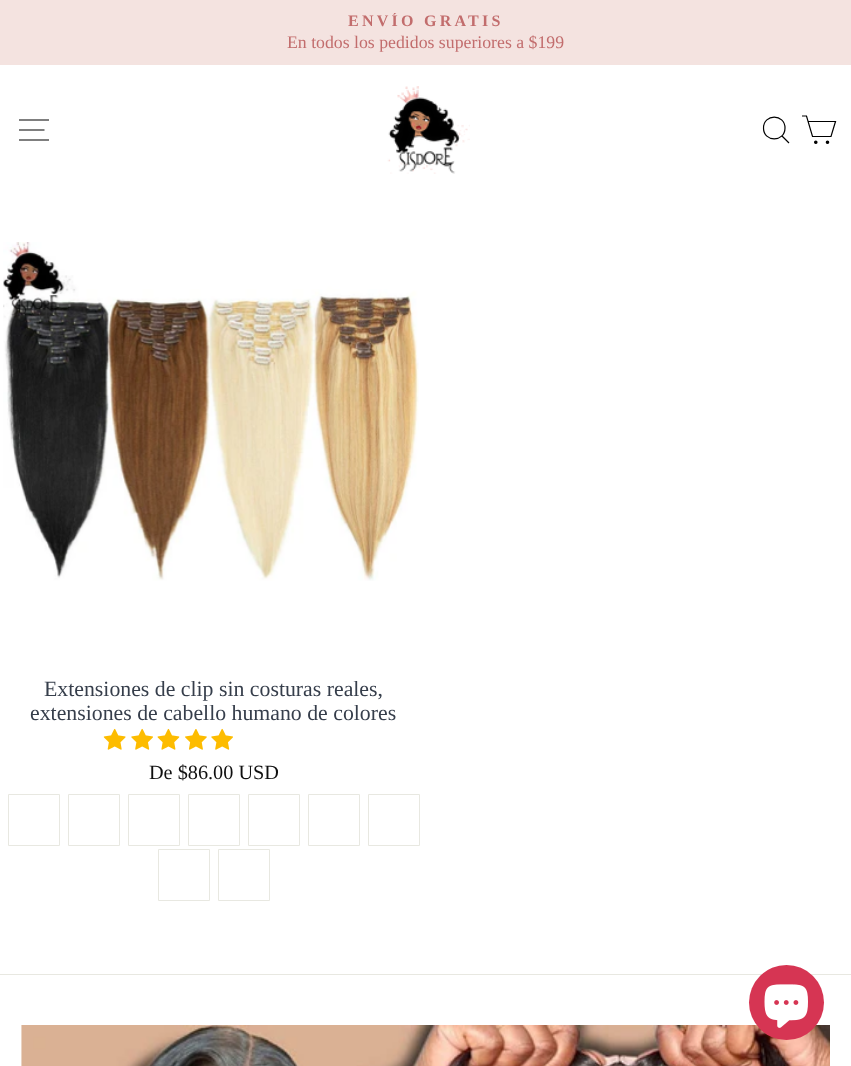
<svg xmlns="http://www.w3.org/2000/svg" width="851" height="1066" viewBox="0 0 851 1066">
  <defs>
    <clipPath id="clip1"><path d="M21 13h809v40H21z"/></clipPath>
  </defs>
  <rect width="100%" height="100%" fill="#fff"/>
  <path d="M0 0h851v65H0z" fill="#f4e3e0"/>
  <path d="M19 120H49M19 130H44.5M19 140H49" fill="none" stroke="#000" stroke-width="1.2"/>
  <image x="387" y="86" width="83" height="88" href="img/1.png"/>
  <path d="M785 128C785 142.5 763.5 142.5 763.5 128C763.5 113.5 785 113.5 785 128ZM789 143L782 136" fill="none" stroke="#000" stroke-width="1.2"/>
  <path d="M808 121.5H835.5L831 136.5H812.5L806.5 116H802" fill="none" stroke="#000" stroke-width="1.2"/>
  <circle cx="815.8" cy="142.3" r="1.2" fill="#000" stroke="#000" stroke-width="1.2"/>
  <circle cx="827.5" cy="142.3" r="1.2" fill="#000" stroke="#000" stroke-width="1.2"/>
  <image x="3" y="242" width="416" height="339" href="img/2.png"/>
  <image x="103" y="728" width="23" height="22" href="img/3.png"/>
  <image x="131" y="728" width="22" height="22" href="img/4.png"/>
  <image x="157" y="728" width="23" height="22" href="img/5.png"/>
  <image x="185" y="729" width="22" height="21" href="img/6.png"/>
  <image x="211" y="728" width="22" height="22" href="img/4.png"/>
  <path d="M8.5 794.5h51v51H8.5z" fill="none" stroke="#e8e8e1"/>
  <path d="M68.5 794.5h51v51H68.5z" fill="none" stroke="#e8e8e1"/>
  <path d="M128.5 794.5h51v51H128.5z" fill="none" stroke="#e8e8e1"/>
  <path d="M188.5 794.5h51v51H188.5z" fill="none" stroke="#e8e8e1"/>
  <path d="M248.5 794.5h51v51H248.5z" fill="none" stroke="#e8e8e1"/>
  <path d="M308.5 794.5h51v51H308.5z" fill="none" stroke="#e8e8e1"/>
  <path d="M368.5 794.5h51v51H368.5z" fill="none" stroke="#e8e8e1"/>
  <path d="M158.5 849.5h51v51H158.5z" fill="none" stroke="#e8e8e1"/>
  <path d="M218.5 849.5h51v51H218.5z" fill="none" stroke="#e8e8e1"/>
  <path d="M0 974h851v1H0z" fill="#e8e8e1"/>
  <image x="21" y="1025" width="809" height="41" href="img/7.png"/>
  <circle cx="786.5" cy="1002.5" r="37.5" fill="#d63553"/>
  <image x="764" y="984" width="44" height="44" href="img/8.png"/>
  <g clip-path="url(#clip1)">
    <text x="348" y="26" font-family="Liberation Serif" font-size="16" font-weight="bold" letter-spacing="3.25" fill="#c26d6d">ENVÍO GRATIS</text>
  </g>
  <text x="287" y="48" font-family="Liberation Serif" font-size="17.75" fill="#c26d6d">En todos los pedidos superiores a $199</text>
  <g font-family="Liberation Serif" font-size="21.8" fill="#363e4b">
    <text x="44" y="696">Extensiones de clip sin costuras reales,</text>
    <text x="30" y="720">extensiones de cabello humano de colores</text>
  </g>
  <text x="149" y="779" font-family="Liberation Serif" font-size="20.25" fill="#0f0f0f">De $86.00 USD</text>
</svg>
